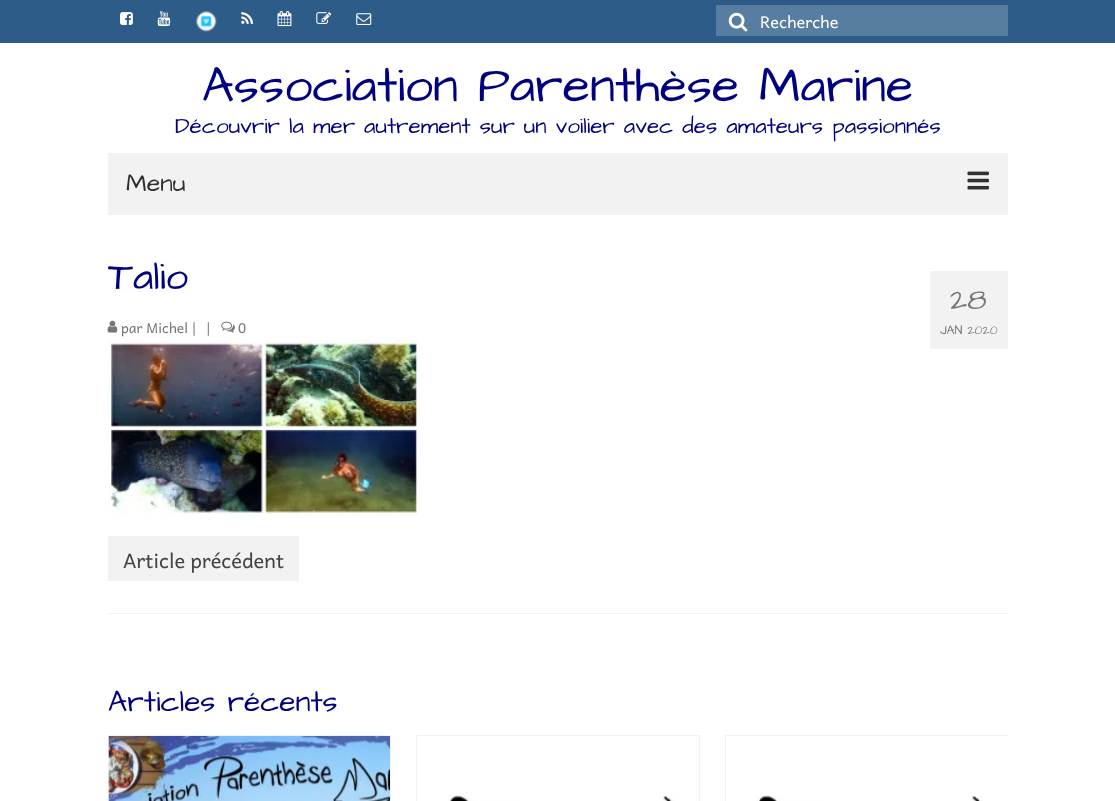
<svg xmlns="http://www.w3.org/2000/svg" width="1115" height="801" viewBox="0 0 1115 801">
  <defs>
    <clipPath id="clip1"><path d="M108 735h900v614H108z"/></clipPath>
  </defs>
  <rect width="100%" height="100%" fill="#fff"/>
  <path d="M0 0h1115v43H0z" fill="#2d5c88"/>
  <image x="120" y="12" width="13" height="13" href="img/1.png"/>
  <image x="157" y="11" width="14" height="16" href="img/2.png"/>
  <image x="196" y="11" width="21" height="21" href="img/3.png"/>
  <image x="241" y="12" width="12" height="12" href="img/4.png"/>
  <image x="277" y="11" width="15" height="16" href="img/5.png"/>
  <image x="316" y="12" width="16" height="12" href="img/6.png"/>
  <image x="356" y="13" width="16" height="12" href="img/7.png"/>
  <path d="M716 5h292v31H716z" fill="#577da0"/>
  <image x="728" y="12" width="20" height="20" href="img/8.png"/>
  <path d="M108 153h900v62H108z" fill="#f2f2f2"/>
  <image x="967" y="171" width="22" height="19" href="img/9.png"/>
  <image x="107" y="320" width="11" height="13" href="img/10.png"/>
  <image x="221" y="321" width="14" height="12" href="img/11.png"/>
  <path d="M930 271h78v78H930z" fill="#f2f2f2"/>
  <image x="107" y="340" width="312" height="176" href="img/12.png"/>
  <path d="M108 613h900v1H108z" fill="#f2f2f2"/>
  <path d="M108 536h191v45H108z" fill="#f2f2f2"/>
  <path d="M108.5 735.5h282v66H108.5z" fill="none" stroke="#f2f2f2"/>
  <image x="108" y="736" width="282" height="65" href="img/13.png"/>
  <path d="M416.5 735.5h283v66H416.5z" fill="none" stroke="#f2f2f2"/>
  <image x="448" y="795" width="227" height="6" href="img/14.png"/>
  <g clip-path="url(#clip1)">
    <path d="M725.5 735.5h283v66H725.5z" fill="none" stroke="#f2f2f2"/>
  </g>
  <image x="757" y="795" width="226" height="6" href="img/15.png"/>
  <text x="760" y="28" font-family="Andika" font-size="16.25" fill="#fff">Recherche</text>
  <text x="202" y="101" font-family="Architects Daughter" font-size="50" fill="#000080">Association Parenthèse Marine</text>
  <text x="175" y="133" font-family="Architects Daughter" font-size="22.5" fill="#000080">Découvrir la mer autrement sur un voilier avec des amateurs passionnés</text>
  <text x="126" y="191" font-family="Architects Daughter" font-size="25" fill="#303030">Menu</text>
  <text x="108" y="289" font-family="Architects Daughter" font-size="40" fill="#000080">Talio</text>
  <g font-family="Andika" font-size="13.75" fill="#777">
    <text x="121" y="333">par Michel |</text>
    <text x="206" y="333">|</text>
    <text x="238" y="333">0</text>
  </g>
  <text x="950" y="309" font-family="Architects Daughter" font-size="30" fill="#777">28</text>
  <text x="940" y="334" font-family="Architects Daughter" font-size="12.5" fill="#777">JAN 2020</text>
  <text x="123" y="568" font-family="Andika" font-size="20" fill="#444">Article précédent</text>
  <text x="108" y="711" font-family="Architects Daughter" font-size="30" fill="#000080">Articles récents</text>
</svg>
